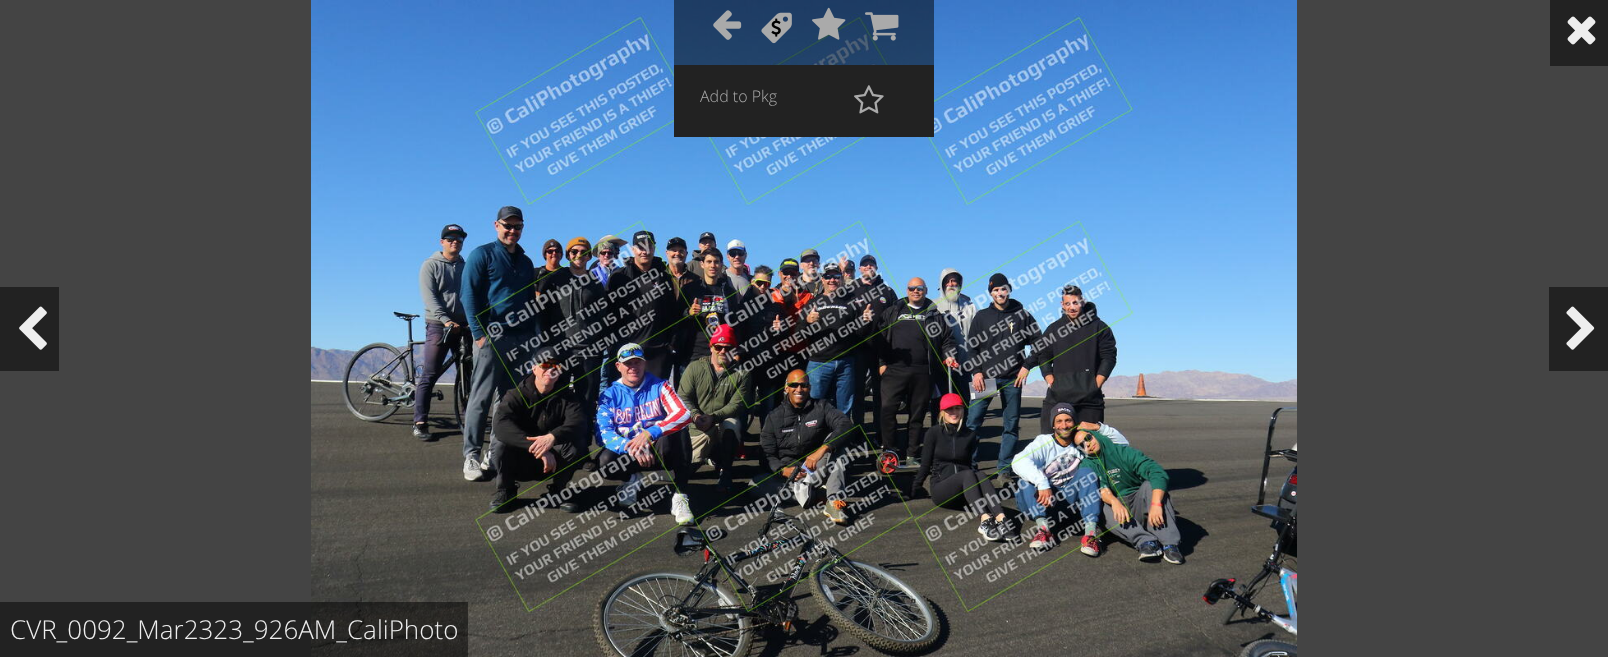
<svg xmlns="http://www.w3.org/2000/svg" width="1608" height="657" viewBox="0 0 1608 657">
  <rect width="100%" height="100%" fill="#444"/>
  <path d="M1550 0h58v66H1550z" fill="#222"/>
  <image x="1567" y="16" width="29" height="29" href="img/1.png"/>
  <image x="311" y="0" width="986" height="657" href="img/10.png"/>
  <path d="M674 0h260v65H674z" fill="#00000080"/>
  <image x="713" y="10" width="29" height="30" href="img/2.png"/>
  <image x="761" y="12" width="31" height="32" href="img/3.png"/>
  <image x="771" y="18" width="10" height="19" href="img/4.png"/>
  <image x="812" y="7" width="34" height="33" href="img/5.png"/>
  <image x="865" y="12" width="34" height="29" href="img/6.png"/>
  <path d="M674 65h260v72H674z" fill="#222"/>
  <image x="854" y="85" width="30" height="29" href="img/7.png"/>
  <path d="M0 287h59v84H0z" fill="#222"/>
  <image x="19" y="306" width="28" height="44" href="img/8.png"/>
  <path d="M1549 287h59v84H1549z" fill="#222"/>
  <image x="1566" y="306" width="29" height="44" href="img/9.png"/>
  <path d="M0 602h468v55H0z" fill="#00000080"/>
  <text x="700" y="102" font-family="Open Sans" font-size="16" font-weight="300" fill="#aaa">Add to Pkg</text>
  <text x="10" y="639" font-family="Open Sans" font-size="26" font-weight="300" fill="#eee">CVR_0092_Mar2323_926AM_CaliPhoto</text>
</svg>
